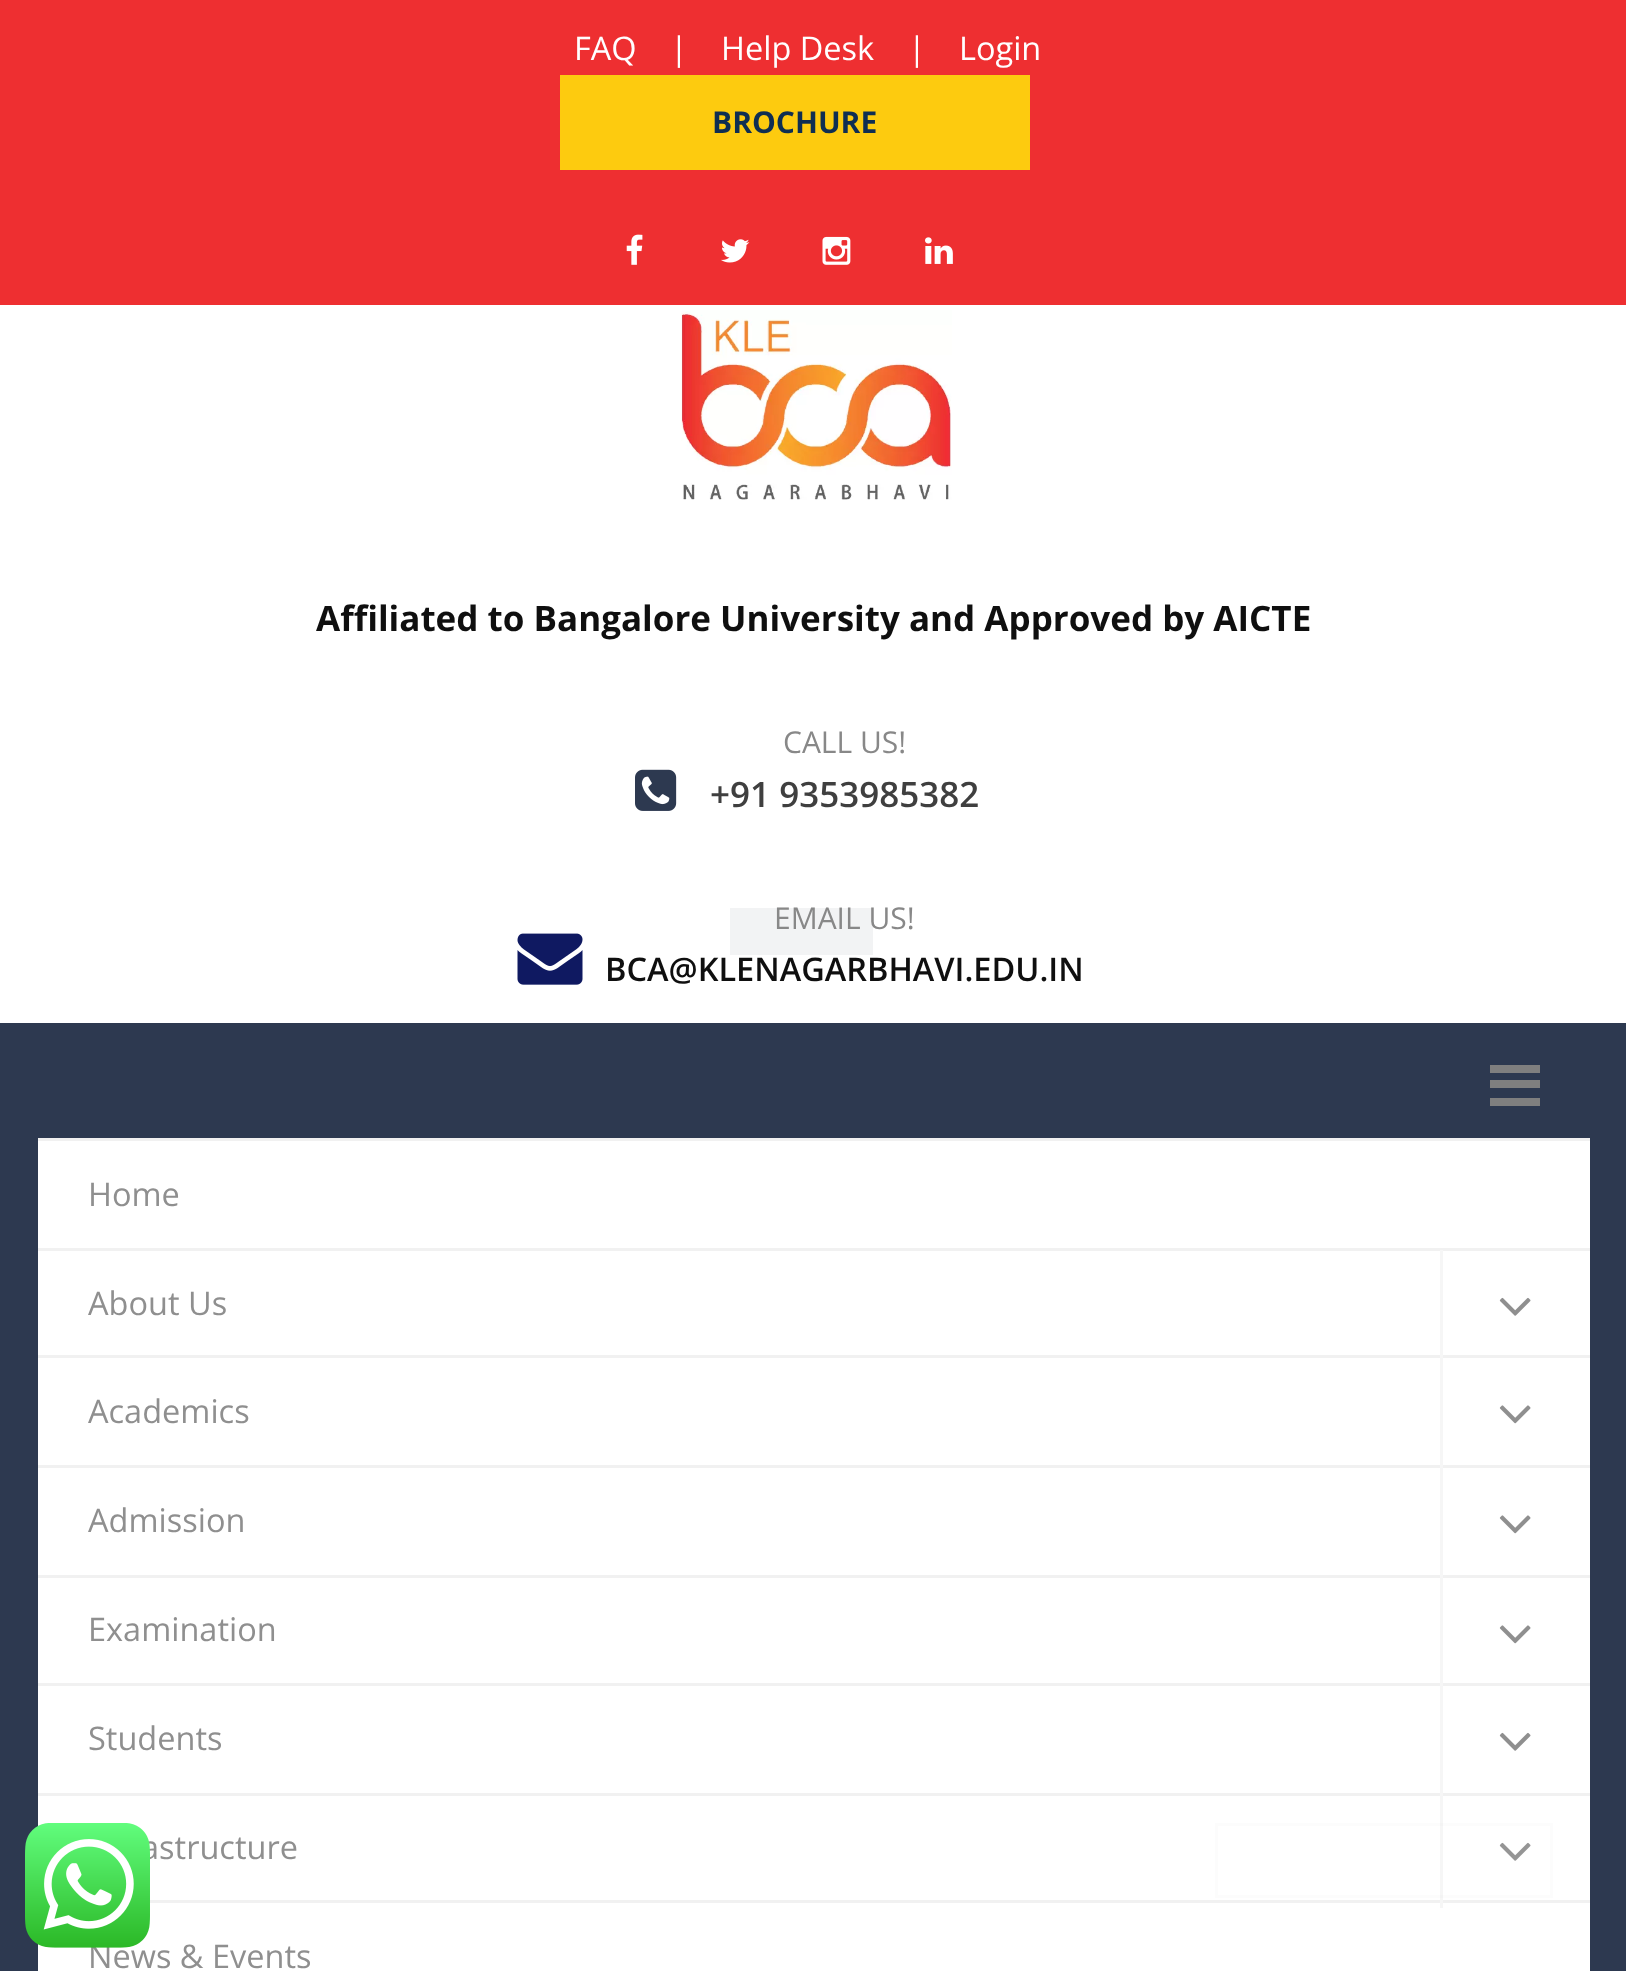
<svg xmlns="http://www.w3.org/2000/svg" width="1626" height="1971" viewBox="0 0 1626 1971">
  <rect width="100%" height="100%" fill="#fff"/>
  <path d="M0 0h1626v305H0z" fill="#ee2f31"/>
  <path d="M560 75h470v95H560z" fill="#fdcb0f"/>
  <image x="626" y="234" width="17" height="31" href="img/1.png"/>
  <image x="721" y="239" width="29" height="24" href="img/2.png"/>
  <image x="822" y="236" width="29" height="29" href="img/3.png"/>
  <image x="925" y="237" width="28" height="27" href="img/4.png"/>
  <image x="681" y="310" width="271" height="190" href="img/5.png"/>
  <image x="635" y="769" width="42" height="42" href="img/6.png"/>
  <image x="517" y="933" width="66" height="52" href="img/7.png"/>
  <path d="M0 1023h1626v948H0z" fill="#2d3950"/>
  <path d="M1490 1065h50v8H1490z" fill="#7f7f7f"/>
  <path d="M1490 1080h50v8H1490z" fill="#7f7f7f"/>
  <path d="M1490 1098h50v8H1490z" fill="#7f7f7f"/>
  <path d="M38 1141h1552v830H38z" fill="#fff"/>
  <path d="M38 1138h1552v3H38z" fill="#f1f1f1"/>
  <path d="M38 1248h1552v3H38z" fill="#f1f1f1"/>
  <path d="M38 1355h1552v3H38z" fill="#f1f1f1"/>
  <path d="M1440 1250h3v113H1440z" fill="#f6f6f6"/>
  <image x="1499" y="1297" width="32" height="19" href="img/8.png"/>
  <path d="M38 1465h1552v3H38z" fill="#f1f1f1"/>
  <path d="M1440 1358h3v112H1440z" fill="#f6f6f6"/>
  <image x="1499" y="1405" width="32" height="19" href="img/9.png"/>
  <path d="M38 1575h1552v3H38z" fill="#f1f1f1"/>
  <path d="M1440 1468h3v112H1440z" fill="#f6f6f6"/>
  <image x="1499" y="1515" width="32" height="19" href="img/9.png"/>
  <path d="M38 1683h1552v3H38z" fill="#f1f1f1"/>
  <path d="M1440 1578h3v112H1440z" fill="#f6f6f6"/>
  <image x="1499" y="1625" width="32" height="19" href="img/9.png"/>
  <path d="M38 1793h1552v3H38z" fill="#f1f1f1"/>
  <path d="M1440 1685h3v113H1440z" fill="#f6f6f6"/>
  <image x="1499" y="1732" width="32" height="19" href="img/8.png"/>
  <path d="M149 1900h1441v3H149z" fill="#f1f1f1"/>
  <path d="M1440 1795h3v113H1440z" fill="#f6f6f6"/>
  <image x="1499" y="1842" width="32" height="19" href="img/8.png"/>
  <path d="M730 908h48v47H730z" fill="#202c450f"/>
  <path d="M778 908h47v47H778z" fill="#202c450f"/>
  <path d="M825 908h48v47H825z" fill="#202c450f"/>
  <path d="M1500 1843h31v18H1500z" fill="#ffffff0f"/>
  <path d="M1216.5 1824.5h335v72H1216.5z" fill="none" stroke="#cccccc0f" stroke-width="3"/>
  <g font-family="Open Sans" font-size="32.5" fill="#fff">
    <text x="574" y="60">FAQ</text>
    <text x="670" y="60">|</text>
    <text x="721" y="60">Help Desk</text>
    <text x="908" y="60">|</text>
    <text x="959" y="60">Login</text>
  </g>
  <text x="712" y="133" font-family="Open Sans" font-size="30" font-weight="bold" fill="#0f2e52">BROCHURE</text>
  <text x="316" y="631" font-family="Open Sans" font-size="35" font-weight="bold" fill="#0f0f0f">Affiliated to Bangalore University and Approved by AICTE</text>
  <text x="783" y="753" font-family="Open Sans" font-size="30" fill="#888">CALL US!</text>
  <text x="710" y="807" font-family="Open Sans" font-size="35" font-weight="600" fill="#3f3f3f">+91 9353985382</text>
  <text x="774" y="929" font-family="Open Sans" font-size="30" fill="#888">EMAIL US!</text>
  <text x="605" y="981" font-family="Open Sans" font-size="32.5" font-weight="600" fill="#0f0f0f">BCA@KLENAGARBHAVI.EDU.IN</text>
  <g font-family="Open Sans" font-size="32.5" fill="#8f8f8f">
    <text x="88" y="1206">Home</text>
    <text x="88" y="1315">About Us</text>
    <text x="88" y="1423">Academics</text>
    <text x="88" y="1532">Admission</text>
    <text x="88" y="1641">Examination</text>
    <text x="88" y="1750">Students</text>
    <text x="141" y="1859">astructure</text>
    <text x="88" y="1968">News &amp; Events</text>
  </g>
  <image x="25" y="1823" width="125" height="125" href="img/10.png"/>
</svg>
